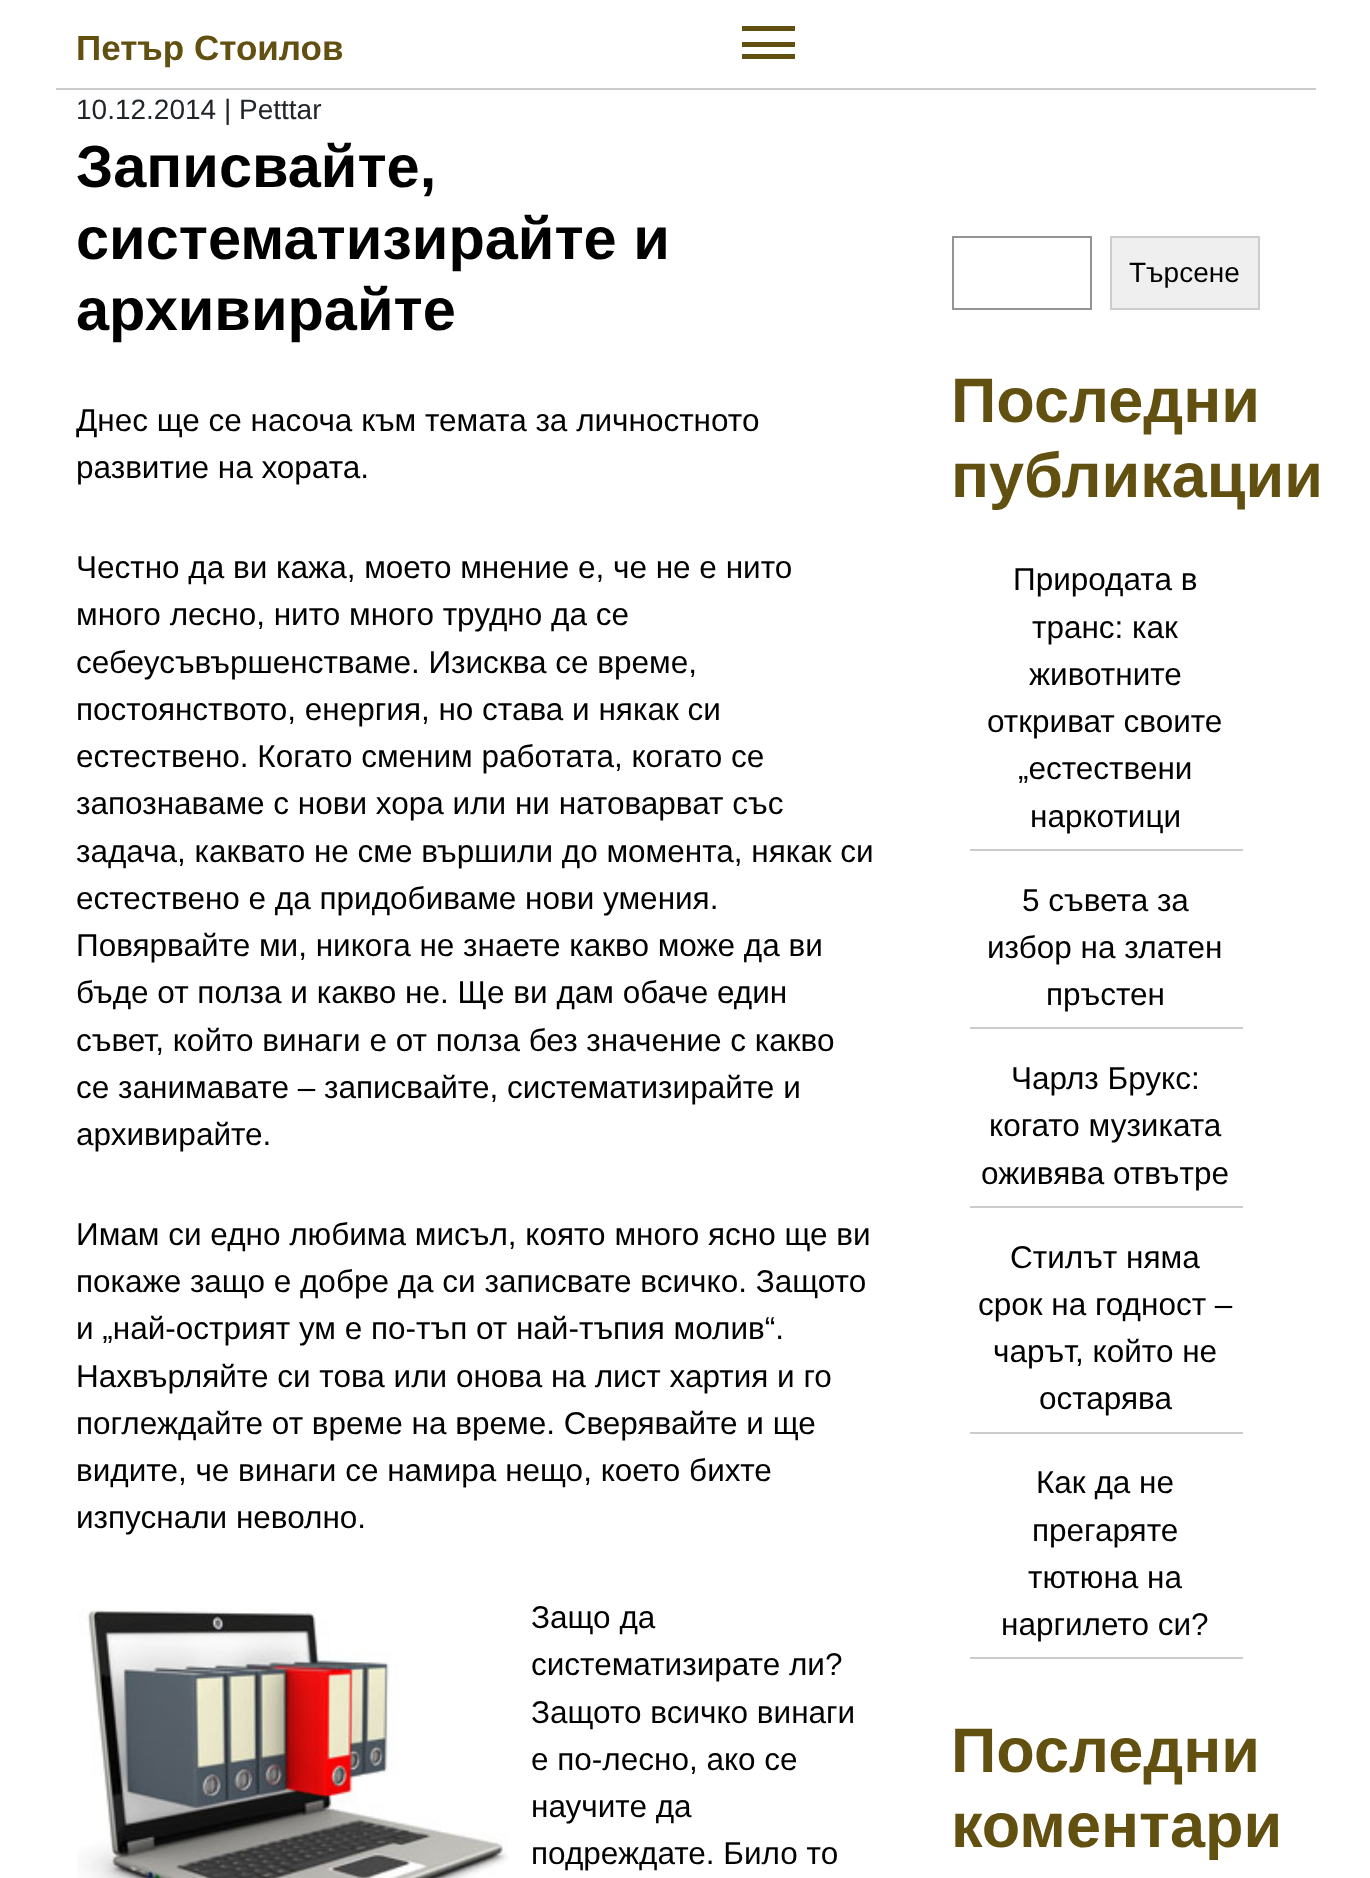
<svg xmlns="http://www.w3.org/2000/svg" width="1370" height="1878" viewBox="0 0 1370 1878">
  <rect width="100%" height="100%" fill="#fff"/>
  <path d="M56 88h1260v2H56z" fill="#ccc"/>
  <path d="M742 26h53v5H742z" fill="#625011"/>
  <path d="M742 42h53v5H742z" fill="#625011"/>
  <path d="M742 54h53v5H742z" fill="#625011"/>
  <image x="77" y="1608" width="431" height="270" href="img/1.png"/>
  <path d="M953 237h138v72H953z" fill="none" stroke="#949494" stroke-width="2"/>
  <path d="M1111 237h148v72H1111z" fill="#efefef" stroke="#ccc" stroke-width="2"/>
  <path d="M970 849h273v2H970z" fill="#ccc"/>
  <path d="M970 1027h273v2H970z" fill="#ccc"/>
  <path d="M970 1206h273v2H970z" fill="#ccc"/>
  <path d="M970 1432h273v2H970z" fill="#ccc"/>
  <path d="M970 1657h273v2H970z" fill="#ccc"/>
  <text x="76" y="60" font-family="Liberation Sans" font-size="35" font-weight="bold" fill="#625011">Петър Стоилов</text>
  <text x="76" y="119" font-family="Liberation Sans" font-size="28" fill="#212529">10.12.2014 | Petttar</text>
  <g font-family="Liberation Sans" font-size="59.5" font-weight="bold" fill="#000">
    <text x="76" y="187">Записвайте,</text>
    <text x="76" y="259">систематизирайте и</text>
    <text x="76" y="330">архивирайте</text>
  </g>
  <g font-family="Liberation Sans" font-size="31.5" fill="#000">
    <text x="76" y="431">Днес ще се насоча към темата за личностното</text>
    <text x="76" y="478">развитие на хората.</text>
    <text x="76" y="578">Честно да ви кажа, моето мнение е, че не е нито</text>
    <text x="76" y="625">много лесно, нито много трудно да се</text>
    <text x="76" y="673">себеусъвършенстваме. Изисква се време,</text>
    <text x="76" y="720">постоянството, енергия, но става и някак си</text>
    <text x="76" y="767">естествено. Когато сменим работата, когато се</text>
    <text x="76" y="814">запознаваме с нови хора или ни натоварват със</text>
    <text x="76" y="862">задача, каквато не сме вършили до момента, някак си</text>
    <text x="76" y="909">естествено е да придобиваме нови умения.</text>
    <text x="76" y="956">Повярвайте ми, никога не знаете какво може да ви</text>
    <text x="76" y="1003">бъде от полза и какво не. Ще ви дам обаче един</text>
    <text x="76" y="1051">съвет, който винаги е от полза без значение с какво</text>
    <text x="76" y="1098">се занимавате – записвайте, систематизирайте и</text>
    <text x="76" y="1145">архивирайте.</text>
    <text x="76" y="1245">Имам си едно любима мисъл, която много ясно ще ви</text>
    <text x="76" y="1292">покаже защо е добре да си записвате всичко. Защото</text>
    <text x="76" y="1339">и „най-острият ум е по-тъп от най-тъпия молив“.</text>
    <text x="76" y="1387">Нахвърляйте си това или онова на лист хартия и го</text>
    <text x="76" y="1434">поглеждайте от време на време. Сверявайте и ще</text>
    <text x="76" y="1481">видите, че винаги се намира нещо, което бихте</text>
    <text x="76" y="1528">изпуснали неволно.</text>
    <text x="531" y="1628">Защо да</text>
    <text x="531" y="1675">систематизирате ли?</text>
    <text x="531" y="1723">Защото всичко винаги</text>
    <text x="531" y="1770">е по-лесно, ако се</text>
    <text x="531" y="1817">научите да</text>
    <text x="531" y="1864">подреждате. Било то</text>
  </g>
  <text x="1129" y="282" font-family="Liberation Sans" font-size="28" fill="#000">Търсене</text>
  <g font-family="Liberation Sans" font-size="63" font-weight="bold" fill="#625011">
    <text x="951" y="422">Последни</text>
    <text x="951" y="497">публикации</text>
  </g>
  <g font-family="Liberation Sans" font-size="31.5" fill="#000">
    <text x="1013" y="590">Природата в</text>
    <text x="1032" y="638">транс: как</text>
    <text x="1029" y="685">животните</text>
    <text x="987" y="732">откриват своите</text>
    <text x="1018" y="779">„естествени</text>
    <text x="1030" y="827">наркотици</text>
    <text x="1022" y="911">5 съвета за</text>
    <text x="987" y="958">избор на златен</text>
    <text x="1046" y="1005">пръстен</text>
    <text x="1011" y="1089">Чарлз Брукс:</text>
    <text x="989" y="1136">когато музиката</text>
    <text x="981" y="1184">оживява отвътре</text>
    <text x="1010" y="1268">Стилът няма</text>
    <text x="978" y="1315">срок на годност –</text>
    <text x="993" y="1362">чарът, който не</text>
    <text x="1039" y="1409">остарява</text>
    <text x="1036" y="1493">Как да не</text>
    <text x="1032" y="1541">прегаряте</text>
    <text x="1028" y="1588">тютюна на</text>
    <text x="1001" y="1635">наргилето си?</text>
  </g>
  <g font-family="Liberation Sans" font-size="63" font-weight="bold" fill="#625011">
    <text x="951" y="1772">Последни</text>
    <text x="951" y="1847">коментари</text>
  </g>
</svg>
